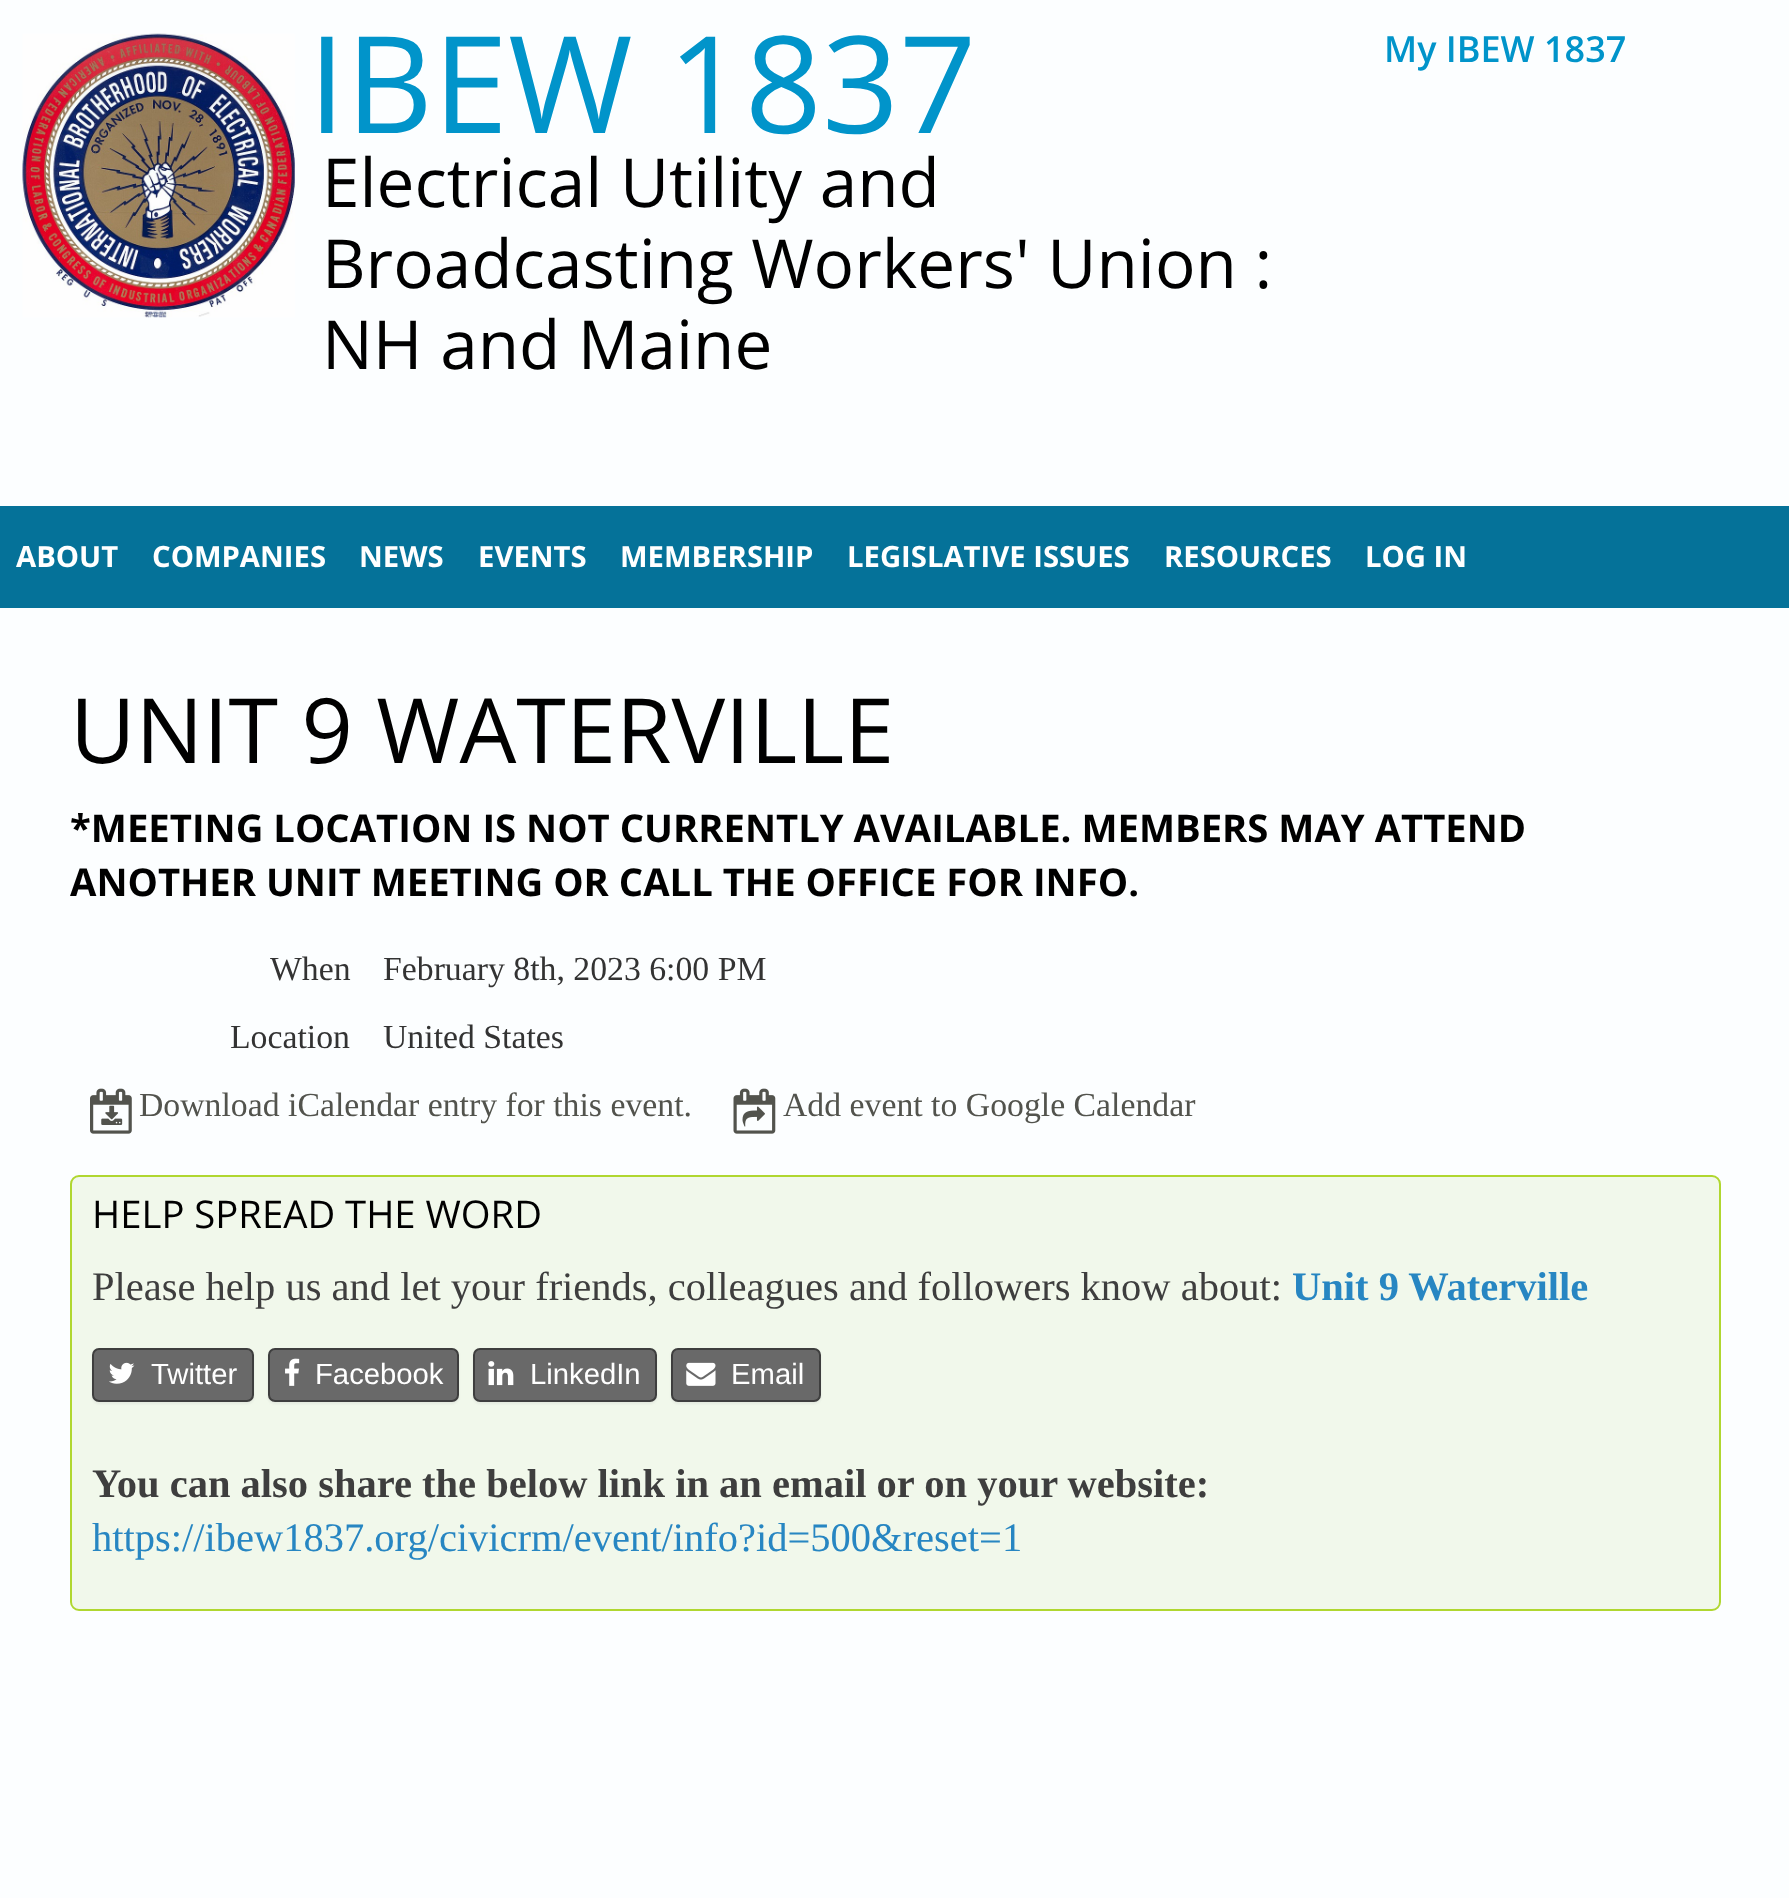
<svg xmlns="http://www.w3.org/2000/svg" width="1789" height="1898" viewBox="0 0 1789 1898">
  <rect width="100%" height="100%" fill="#fcfeff"/>
  <image x="22" y="33" width="273" height="285" href="img/1.png"/>
  <path d="M0 506h1789v102H0z" fill="#057299"/>
  <image x="90" y="1088" width="42" height="46" href="img/2.png"/>
  <image x="101" y="1105" width="22" height="20" href="img/3.png"/>
  <image x="733" y="1088" width="43" height="46" href="img/4.png"/>
  <image x="742" y="1106" width="23" height="21" href="img/5.png"/>
  <rect x="71" y="1176" width="1649" height="434" rx="8" fill="#f1f8eb" stroke="#b0d730" stroke-width="2"/>
  <rect x="92" y="1350" width="162" height="54" rx="7" fill="#b4b4b433" filter="blur(1px)"/>
  <rect x="93" y="1349" width="160" height="52" rx="6" fill="#696969" stroke="#3e3e3e" stroke-width="2"/>
  <image x="109" y="1362" width="26" height="22" href="img/6.png"/>
  <rect x="268" y="1350" width="191" height="54" rx="7" fill="#b4b4b433" filter="blur(1px)"/>
  <rect x="269" y="1349" width="189" height="52" rx="6" fill="#696969" stroke="#3e3e3e" stroke-width="2"/>
  <image x="285" y="1358" width="15" height="28" href="img/7.png"/>
  <rect x="473" y="1350" width="184" height="54" rx="7" fill="#b4b4b433" filter="blur(1px)"/>
  <rect x="474" y="1349" width="182" height="52" rx="6" fill="#696969" stroke="#3e3e3e" stroke-width="2"/>
  <image x="488" y="1361" width="26" height="25" href="img/8.png"/>
  <rect x="671" y="1350" width="150" height="54" rx="7" fill="#b4b4b433" filter="blur(1px)"/>
  <rect x="672" y="1349" width="148" height="52" rx="6" fill="#696969" stroke="#3e3e3e" stroke-width="2"/>
  <image x="686" y="1362" width="30" height="24" href="img/9.png"/>
  <text x="308" y="133" font-family="Open Sans" font-size="135" fill="#0194ca">IBEW 1837</text>
  <g font-family="Open Sans" font-size="67.5" fill="#000">
    <text x="322" y="207">Electrical Utility and</text>
    <text x="322" y="288">Broadcasting Workers' Union :</text>
    <text x="322" y="369">NH and Maine</text>
  </g>
  <text x="1384" y="62" font-family="Open Sans" font-size="36" font-weight="600" fill="#0194ca">My IBEW 1837</text>
  <g font-family="Open Sans" font-size="29.25" font-weight="bold" fill="#fff">
    <text x="16" y="567">ABOUT</text>
    <text x="152" y="567">COMPANIES</text>
    <text x="359" y="567">NEWS</text>
    <text x="478" y="567">EVENTS</text>
    <text x="620" y="567">MEMBERSHIP</text>
    <text x="847" y="567">LEGISLATIVE ISSUES</text>
    <text x="1164" y="567">RESOURCES</text>
    <text x="1365" y="567">LOG IN</text>
  </g>
  <text x="70" y="763" font-family="Open Sans" font-size="90" fill="#000">UNIT 9 WATERVILLE</text>
  <g font-family="Open Sans" font-size="38.25" font-weight="bold" fill="#000">
    <text x="70" y="842">*MEETING LOCATION IS NOT CURRENTLY AVAILABLE. MEMBERS MAY ATTEND</text>
    <text x="70" y="896">ANOTHER UNIT MEETING OR CALL THE OFFICE FOR INFO.</text>
  </g>
  <g font-family="Liberation Serif" font-size="33.75" fill="#333">
    <text x="270" y="980">When</text>
    <text x="383" y="980">February 8th, 2023 6:00 PM</text>
    <text x="230" y="1048">Location</text>
    <text x="383" y="1048">United States</text>
  </g>
  <g font-family="Liberation Serif" font-size="33.75" fill="#52534d">
    <text x="139" y="1116">Download iCalendar entry for this event.</text>
    <text x="783" y="1116">Add event to Google Calendar</text>
  </g>
  <text x="92" y="1228" font-family="Open Sans" font-size="38.25" fill="#000">HELP SPREAD THE WORD</text>
  <text x="92" y="1300" font-family="Liberation Serif" font-size="40.5" fill="#3e3e3e">Please help us and let your friends, colleagues and followers know about:</text>
  <text x="1292" y="1300" font-family="Liberation Serif" font-size="40.5" font-weight="bold" fill="#2786c2">Unit 9 Waterville</text>
  <g font-family="Liberation Sans" font-size="29.25" fill="#fff">
    <text x="151" y="1384">Twitter</text>
    <text x="315" y="1384">Facebook</text>
    <text x="530" y="1384">LinkedIn</text>
    <text x="731" y="1384">Email</text>
  </g>
  <text x="92" y="1497" font-family="Liberation Serif" font-size="40.5" font-weight="bold" fill="#3e3e3e">You can also share the below link in an email or on your website:</text>
  <text x="92" y="1551" font-family="Liberation Serif" font-size="40.5" fill="#2786c2">https://ibew1837.org/civicrm/event/info?id=500&amp;reset=1</text>
</svg>
